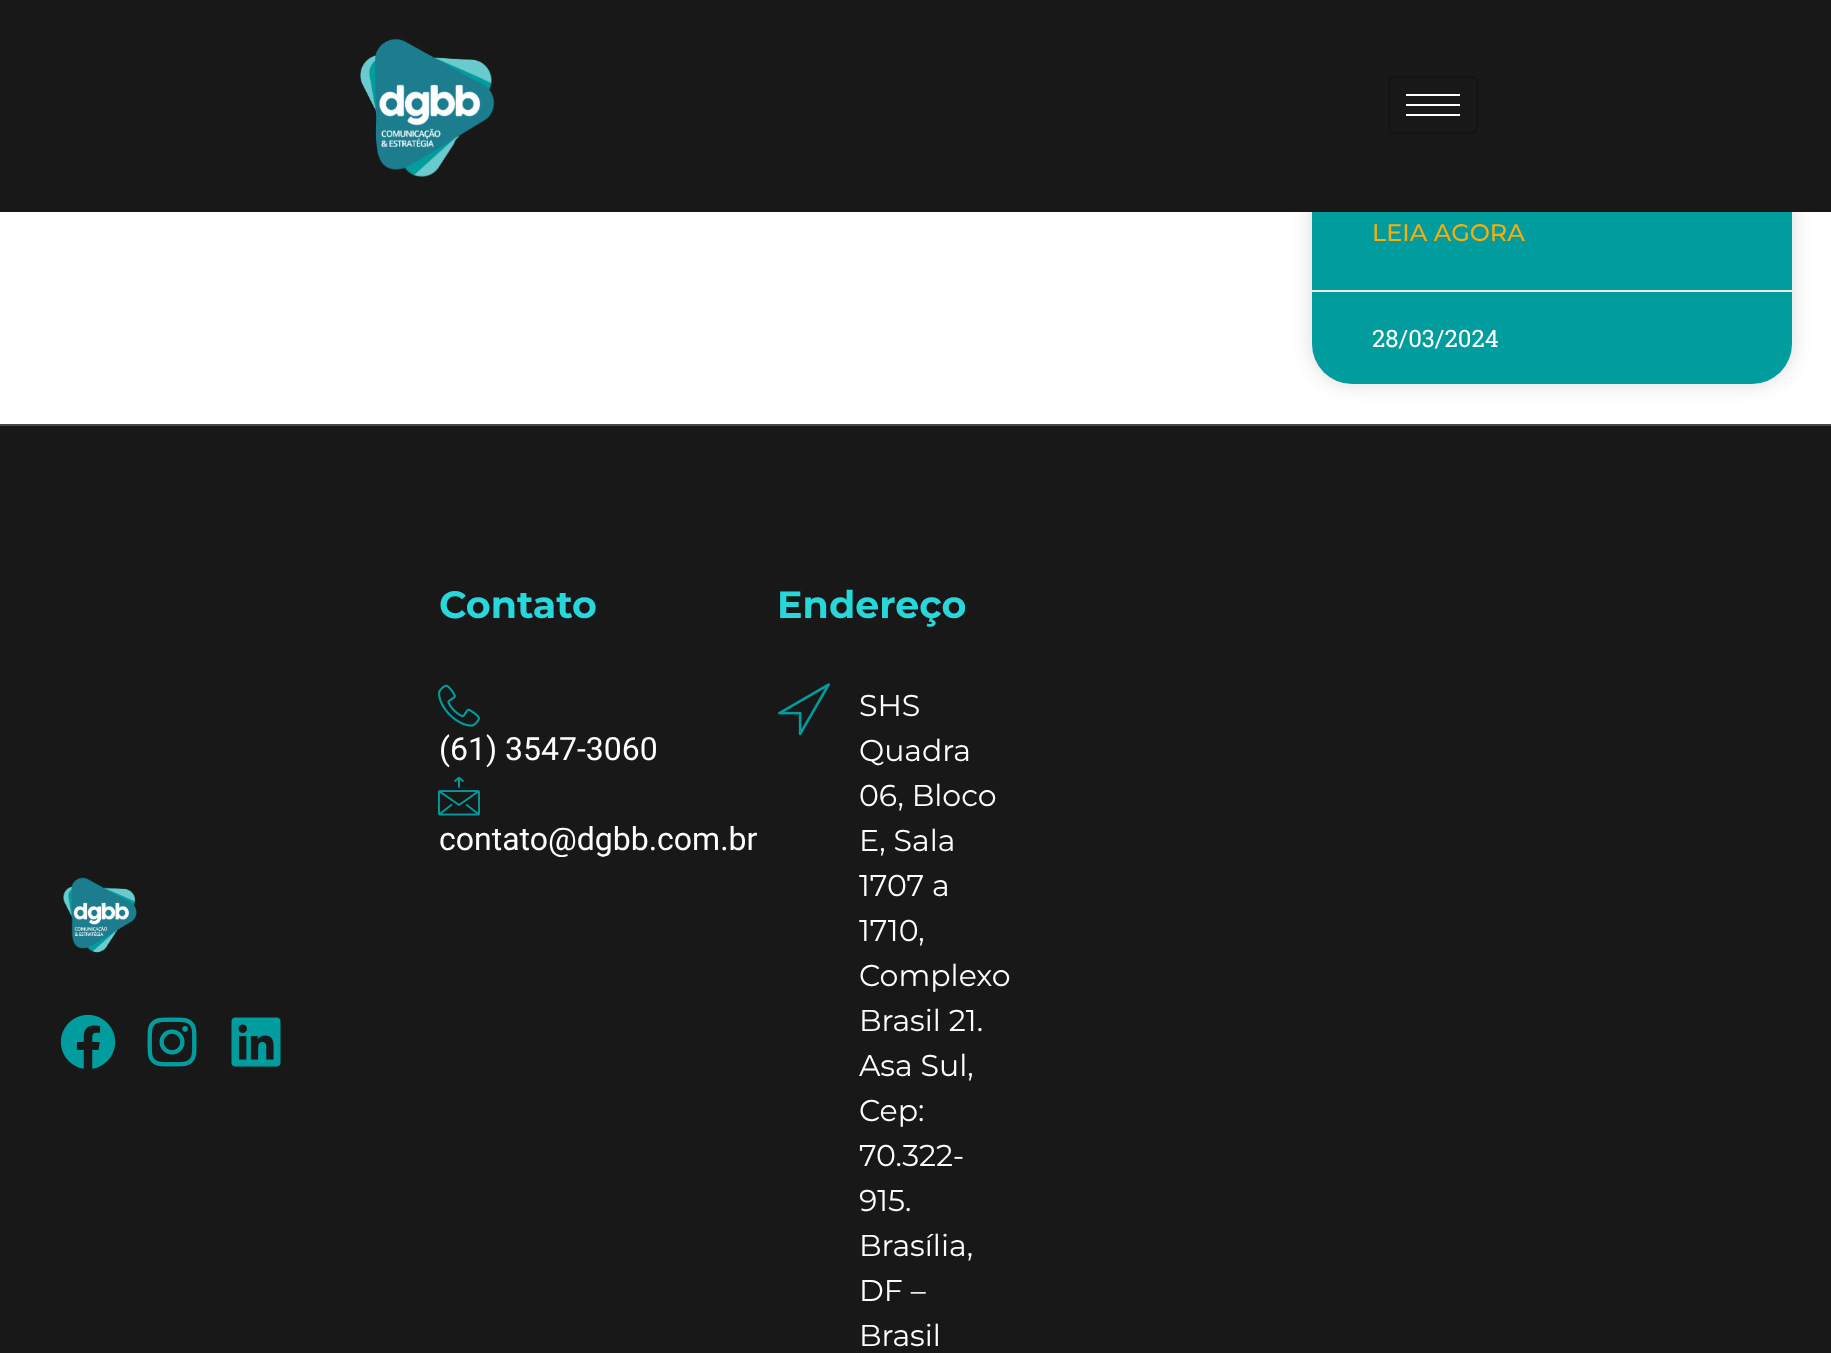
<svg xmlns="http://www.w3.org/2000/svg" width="1831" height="1353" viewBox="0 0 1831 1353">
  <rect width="100%" height="100%" fill="#fff"/>
  <rect x="1312" y="-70" width="480" height="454" rx="40" fill="#00000026" filter="blur(10px)"/>
  <rect x="1312" y="-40" width="480" height="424" rx="40" fill="#009c9e"/>
  <path d="M0 0h1831v212H0z" fill="#181818"/>
  <image x="360" y="39" width="135" height="138" href="img/1.png"/>
  <rect x="1389" y="77" width="88" height="56" rx="5" fill="none" stroke="#131313" stroke-width="2"/>
  <path d="M1406 94h54v2H1406z" fill="#fff"/>
  <path d="M1406 104h54v2H1406z" fill="#fff"/>
  <path d="M1406 114h54v2H1406z" fill="#fff"/>
  <path d="M1312 290h480v2H1312z" fill="#eaeaea"/>
  <path d="M0 426h1831v927H0z" fill="#181818"/>
  <path d="M0 424h1831v2H0z" fill="#464646"/>
  <image x="438" y="684" width="42" height="43" href="img/2.png"/>
  <image x="438" y="776" width="42" height="40" href="img/3.png"/>
  <image x="778" y="683" width="52" height="53" href="img/4.png"/>
  <image x="63" y="877" width="74" height="76" href="img/5.png"/>
  <image x="60" y="1014" width="56" height="55" href="img/6.png"/>
  <image x="147" y="1017" width="50" height="50" href="img/7.png"/>
  <image x="231" y="1017" width="50" height="50" href="img/8.png"/>
  <text x="1372" y="241" font-family="Montserrat" font-size="24" font-weight="500" fill="#f8ae08">LEIA AGORA</text>
  <text x="1372" y="347" font-family="Roboto Slab" font-size="24" fill="#fff">28/03/2024</text>
  <text x="439" y="618" font-family="Montserrat" font-size="38" font-weight="bold" fill="#28d7da">Contato</text>
  <g font-family="Roboto" font-size="32" fill="#fff">
    <text x="439" y="760">(61) 3547-3060</text>
    <text x="439" y="850">contato@dgbb.com.br</text>
  </g>
  <text x="777" y="618" font-family="Montserrat" font-size="38" font-weight="bold" fill="#28d7da">Endereço</text>
  <g font-family="Montserrat" font-size="30" fill="#fff">
    <text x="859" y="716">SHS</text>
    <text x="859" y="761">Quadra</text>
    <text x="859" y="806">06, Bloco</text>
    <text x="859" y="851">E, Sala</text>
    <text x="859" y="896">1707 a</text>
    <text x="859" y="941">1710,</text>
    <text x="859" y="986">Complexo</text>
    <text x="859" y="1031">Brasil 21.</text>
    <text x="859" y="1076">Asa Sul,</text>
    <text x="859" y="1121">Cep:</text>
    <text x="859" y="1166">70.322-</text>
    <text x="859" y="1211">915.</text>
    <text x="859" y="1256">Brasília,</text>
    <text x="859" y="1301">DF –</text>
    <text x="859" y="1346">Brasil</text>
  </g>
</svg>
